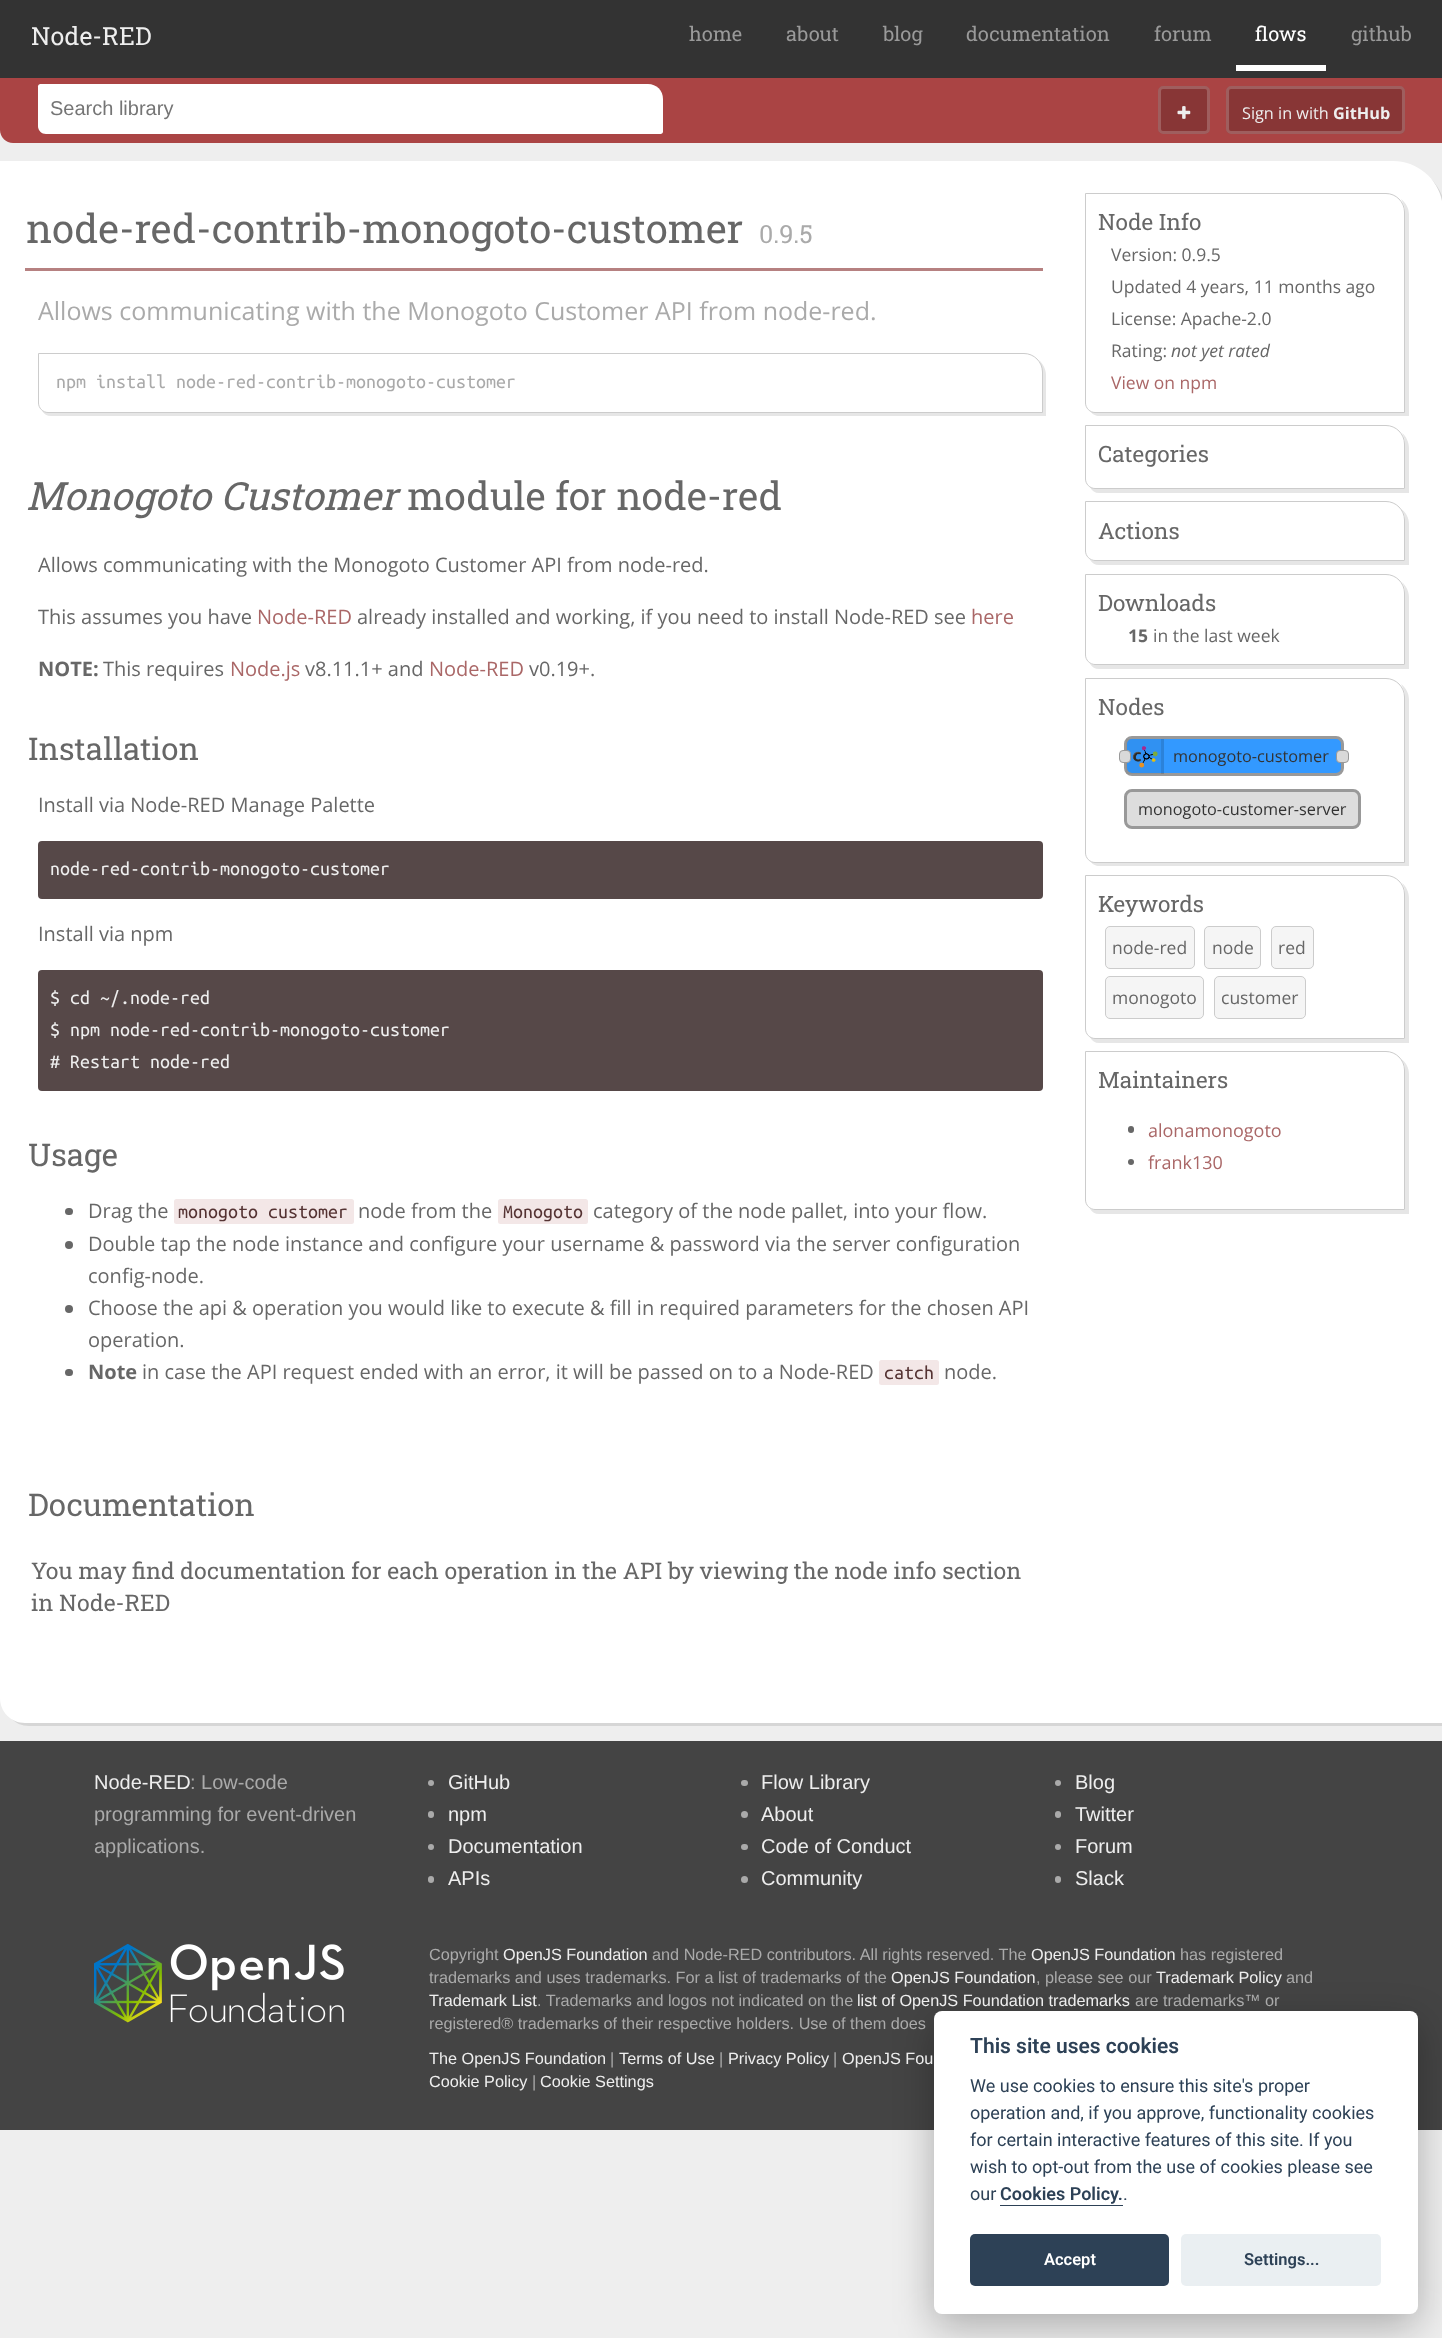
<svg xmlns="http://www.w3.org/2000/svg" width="1442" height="2338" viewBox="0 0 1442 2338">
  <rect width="100%" height="100%" fill="#eee"/>
  <path d="M0 0h1442v78H0z" fill="#333"/>
  <path d="M1236 65h90v6H1236z" fill="#fff"/>
  <path d="M0 78H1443V143H13C6 143 0 137 0 130Z" fill="#a44"/>
  <path d="M40.5 84H648C656.5 84 663 90.5 663 99V131.5C663 133 662 134 660.5 134H46C41.5 134 38 130.5 38 126V86.5C38 85 39 84 40.5 84Z" fill="#fff"/>
  <rect x="1158" y="86" width="52" height="48" rx="5" fill="#883636"/>
  <rect x="1159.5" y="87.5" width="49" height="45" rx="3.5" fill="none" stroke="#ffffff33" stroke-width="3"/>
  <image x="1177" y="106" width="14" height="13" href="img/1.png"/>
  <rect x="1226" y="86" width="179" height="48" rx="5" fill="#883636"/>
  <rect x="1227.5" y="87.5" width="176" height="45" rx="3.5" fill="none" stroke="#ffffff33" stroke-width="3"/>
  <path d="M11 1718C15 1723 22 1726 29 1726H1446V215C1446 201 1440 188 1431 179C1438 188 1442 199 1442 211V1722H25C20 1722 15 1721 11 1718Z" fill="#d6d6d6"/>
  <path d="M0 161H1393C1420.5 161 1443 183.5 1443 211V1723H25C11 1723 0 1712 0 1698Z" fill="#fff"/>
  <path d="M25 268h1018v3H25z" fill="#b68181"/>
  <path d="M42 411C44 414 47 416 51 416H1046V375C1046 369 1043 364 1039 360C1041 363 1042 367 1042 371V412H48C46 412 44 412 42 411Z" fill="#e6e6e6"/>
  <path d="M38.5 353.5H1024C1034 353.5 1042.5 362 1042.5 372V412.5H48C43 412.5 38.5 408 38.5 403Z" fill="none" stroke="#ccc"/>
  <rect x="38" y="841" width="1005" height="58" rx="4" fill="#564848"/>
  <rect x="38" y="970" width="1005" height="121" rx="4" fill="#564848"/>
  <rect x="65" y="1208" width="8" height="7" rx="3.5" fill="#676767"/>
  <rect x="174" y="1199" width="180" height="25" rx="2.5" fill="#f3e7e7"/>
  <rect x="498" y="1199" width="90" height="25" rx="2.5" fill="#f3e7e7"/>
  <circle cx="69" cy="1245" r="4" fill="#676767"/>
  <circle cx="69" cy="1309" r="4" fill="#676767"/>
  <rect x="65" y="1369" width="8" height="7" rx="3.5" fill="#676767"/>
  <rect x="879" y="1360" width="60" height="25" rx="2.5" fill="#f3e7e7"/>
  <path d="M1091 412C1092 414 1096 416 1099 416H1409V215C1409 208 1406 203 1401 199C1403 203 1405 207 1405 211V412H1095Z" fill="#e6e6e6"/>
  <path d="M1085.5 193.5H1386C1396 193.5 1404.5 202 1404.5 212V412.5H1095C1090 412.5 1085.5 408 1085.5 403Z" fill="none" stroke="#ccc"/>
  <path d="M1090 487C1092 491 1095 493 1099 493H1409V448C1409 442 1406 436 1402 433C1404 436 1405 440 1405 444V489H1095Z" fill="#e6e6e6"/>
  <path d="M1085.5 425.5H1386C1396 425.5 1404.5 434 1404.5 444V488.5H1095C1090 488.5 1085.5 484 1085.5 479Z" fill="none" stroke="#ccc"/>
  <path d="M1090 560C1092 563 1095 565 1099 565H1409V524C1409 518 1406 512 1401 509C1404 512 1405 516 1405 520V561H1095Z" fill="#e6e6e6"/>
  <path d="M1085.5 501.5H1386C1396 501.5 1404.5 510 1404.5 520V560.5H1095C1090 560.5 1085.5 556 1085.5 551Z" fill="none" stroke="#ccc"/>
  <path d="M1090 664C1092 667 1095 669 1099 669H1409V597C1409 591 1406 586 1402 582C1404 585 1405 589 1405 592V665H1095Z" fill="#e6e6e6"/>
  <path d="M1085.5 574.5H1386C1396 574.5 1404.5 583 1404.5 593V664.5H1095C1090 664.5 1085.5 660 1085.5 655Z" fill="none" stroke="#ccc"/>
  <path d="M1091 862C1092 864 1096 866 1099 866H1409V700C1409 693 1406 688 1401 684C1403 688 1405 692 1405 696V862H1095Z" fill="#e6e6e6"/>
  <path d="M1085.5 678.5H1386C1396 678.5 1404.5 687 1404.5 697V862.5H1095C1090 862.5 1085.5 858 1085.5 853Z" fill="none" stroke="#ccc"/>
  <rect x="1125.5" y="737.5" width="217" height="37" rx="6.5" fill="#39f" stroke="#999" stroke-width="3"/>
  <path d="M1126 739h38v35H1126z" fill="#0000000d"/>
  <rect x="1119.5" y="750.5" width="11" height="12" rx="3.5" fill="#d9d9d9" stroke="#999"/>
  <image x="1132" y="746" width="26" height="22" href="img/2.png"/>
  <path d="M1161 739h3v35H1161z" fill="#0000001a"/>
  <rect x="1336.5" y="750.5" width="12" height="12" rx="3.5" fill="#d9d9d9" stroke="#999"/>
  <rect x="1125.5" y="790.5" width="234" height="37" rx="6.5" fill="#ddd" stroke="#999" stroke-width="3"/>
  <path d="M1090 1037C1092 1041 1095 1043 1099 1043H1409V898C1409 892 1406 886 1402 883C1404 886 1405 890 1405 894V1039H1095Z" fill="#e6e6e6"/>
  <path d="M1085.5 875.5H1386C1396 875.5 1404.5 884 1404.5 894V1038.5H1095C1090 1038.5 1085.5 1034 1085.5 1029Z" fill="none" stroke="#ccc"/>
  <rect x="1105.5" y="926.5" width="89" height="42" rx="4.5" fill="#f5f5f5" stroke="#ccc"/>
  <rect x="1204.5" y="926.5" width="56" height="42" rx="4.5" fill="#f5f5f5" stroke="#ccc"/>
  <rect x="1271.5" y="926.5" width="42" height="42" rx="4.5" fill="#f5f5f5" stroke="#ccc"/>
  <rect x="1105.5" y="976.5" width="98" height="42" rx="4.5" fill="#f5f5f5" stroke="#ccc"/>
  <rect x="1214.5" y="976.5" width="91" height="42" rx="4.5" fill="#f5f5f5" stroke="#ccc"/>
  <path d="M1090 1209C1092 1212 1095 1214 1099 1214H1409V1074C1409 1068 1406 1062 1401 1059C1404 1062 1405 1066 1405 1070V1210H1095Z" fill="#e6e6e6"/>
  <path d="M1085.5 1051.5H1386C1396 1051.5 1404.5 1060 1404.5 1070V1209.5H1095C1090 1209.5 1085.5 1205 1085.5 1200Z" fill="none" stroke="#ccc"/>
  <rect x="1128" y="1126" width="6" height="7" rx="3" fill="#676767"/>
  <circle cx="1131" cy="1162" r="3" fill="#676767"/>
  <path d="M0 1741h1442v389H0z" fill="#444"/>
  <circle cx="431" cy="1783" r="3" fill="#aaa"/>
  <rect x="428" y="1811" width="6" height="7" rx="3" fill="#aaa"/>
  <circle cx="431" cy="1847" r="3" fill="#aaa"/>
  <rect x="428" y="1876" width="6" height="7" rx="3" fill="#aaa"/>
  <rect x="741" y="1780" width="7" height="6" rx="3" fill="#aaa"/>
  <circle cx="744.5" cy="1814.5" r="3.5" fill="#aaa"/>
  <rect x="741" y="1844" width="7" height="6" rx="3" fill="#aaa"/>
  <circle cx="744.5" cy="1879.5" r="3.5" fill="#aaa"/>
  <circle cx="1058" cy="1783" r="3" fill="#aaa"/>
  <rect x="1055" y="1811" width="6" height="7" rx="3" fill="#aaa"/>
  <circle cx="1058" cy="1847" r="3" fill="#aaa"/>
  <rect x="1055" y="1876" width="6" height="7" rx="3" fill="#aaa"/>
  <image x="94" y="1944" width="250" height="79" href="img/3.png"/>
  <rect x="934" y="2024" width="484" height="302" rx="8" fill="#02020347" filter="blur(19px)"/>
  <rect x="934" y="2011" width="484" height="303" rx="8" fill="#fff"/>
  <path d="M1000 2205h123v1H1000z" fill="#2d4156"/>
  <rect x="970" y="2234" width="199" height="52" rx="5" fill="#2d4156"/>
  <rect x="1181" y="2234" width="200" height="52" rx="5" fill="#eaeff2"/>
  <text x="31" y="45" font-family="Roboto Slab" font-size="25" fill="#eee">Node-RED</text>
  <g font-family="Roboto Slab" font-size="20" fill="#999">
    <text x="689" y="41">home</text>
    <text x="786" y="41">about</text>
    <text x="883" y="41">blog</text>
    <text x="966" y="41">documentation</text>
    <text x="1154" y="41">forum</text>
  </g>
  <text x="1255" y="41" font-family="Roboto Slab" font-size="20" fill="#fff">flows</text>
  <text x="1351" y="41" font-family="Roboto Slab" font-size="20" fill="#999">github</text>
  <text x="50" y="115" font-family="Liberation Sans" font-size="20" fill="#757575">Search library</text>
  <text x="1242" y="119" font-family="Open Sans" font-size="16.25" fill="#eee">Sign in with</text>
  <text x="1333" y="119" font-family="Open Sans" font-size="16.25" font-weight="bold" fill="#eee">GitHub</text>
  <text x="26" y="243" font-family="Roboto Slab" font-size="40" fill="#676767">node-red-contrib-monogoto-customer</text>
  <text x="759" y="243" font-family="Roboto Slab" font-size="25" fill="#aaa">0.9.5</text>
  <text x="38" y="320" font-family="Open Sans" font-size="25" fill="#aaa">Allows communicating with the Monogoto Customer API from node-red.</text>
  <text x="56" y="388" font-family="Ubuntu Mono" font-size="20" fill="#aaa">npm install node-red-contrib-monogoto-customer</text>
  <text x="26" y="510" font-family="Roboto Slab" font-size="39" font-style="italic" fill="#676767">Monogoto Customer</text>
  <text x="407" y="510" font-family="Roboto Slab" font-size="39" fill="#676767">module for node-red</text>
  <g font-family="Open Sans" font-size="20" fill="#676767">
    <text x="38" y="572">Allows communicating with the Monogoto Customer API from node-red.</text>
    <text x="38" y="624">This assumes you have</text>
  </g>
  <text x="257" y="624" font-family="Open Sans" font-size="20" fill="#aa6767">Node-RED</text>
  <text x="357" y="624" font-family="Open Sans" font-size="20" fill="#676767">already installed and working, if you need to install Node-RED see</text>
  <text x="971" y="624" font-family="Open Sans" font-size="20" fill="#aa6767">here</text>
  <text x="38" y="676" font-family="Open Sans" font-size="20" font-weight="bold" fill="#676767">NOTE:</text>
  <text x="103" y="676" font-family="Open Sans" font-size="20" fill="#676767">This requires</text>
  <text x="230" y="676" font-family="Open Sans" font-size="20" fill="#aa6767">Node.js</text>
  <text x="305" y="676" font-family="Open Sans" font-size="20" fill="#676767">v8.11.1+ and</text>
  <text x="429" y="676" font-family="Open Sans" font-size="20" fill="#aa6767">Node-RED</text>
  <text x="529" y="676" font-family="Open Sans" font-size="20" fill="#676767">v0.19+.</text>
  <text x="28" y="760" font-family="Roboto Slab" font-size="31.25" fill="#676767">Installation</text>
  <text x="38" y="812" font-family="Open Sans" font-size="20" fill="#676767">Install via Node-RED Manage Palette</text>
  <text x="50" y="875" font-family="Ubuntu Mono" font-size="20" fill="#eee">node-red-contrib-monogoto-customer</text>
  <text x="38" y="941" font-family="Open Sans" font-size="20" fill="#676767">Install via npm</text>
  <g font-family="Ubuntu Mono" font-size="20" fill="#eee">
    <text x="50" y="1004">$ cd ~/.node-red</text>
    <text x="50" y="1036">$ npm node-red-contrib-monogoto-customer</text>
    <text x="50" y="1068"># Restart node-red</text>
  </g>
  <text x="28" y="1166" font-family="Roboto Slab" font-size="31.25" fill="#676767">Usage</text>
  <text x="88" y="1218" font-family="Open Sans" font-size="20" fill="#676767">Drag the</text>
  <text x="178" y="1218" font-family="Ubuntu Mono" font-size="20" fill="#533">monogoto customer</text>
  <text x="358" y="1218" font-family="Open Sans" font-size="20" fill="#676767">node from the</text>
  <text x="503" y="1218" font-family="Ubuntu Mono" font-size="20" fill="#533">Monogoto</text>
  <g font-family="Open Sans" font-size="20" fill="#676767">
    <text x="593" y="1218">category of the node pallet, into your flow.</text>
    <text x="88" y="1251">Double tap the node instance and configure your username &amp; password via the server configuration</text>
    <text x="88" y="1283">config-node.</text>
    <text x="88" y="1315">Choose the api &amp; operation you would like to execute &amp; fill in required parameters for the chosen API</text>
    <text x="88" y="1347">operation.</text>
  </g>
  <text x="88" y="1379" font-family="Open Sans" font-size="20" font-weight="bold" fill="#676767">Note</text>
  <text x="142" y="1379" font-family="Open Sans" font-size="20" fill="#676767">in case the API request ended with an error, it will be passed on to a Node-RED</text>
  <text x="884" y="1379" font-family="Ubuntu Mono" font-size="20" fill="#533">catch</text>
  <text x="944" y="1379" font-family="Open Sans" font-size="20" fill="#676767">node.</text>
  <text x="28" y="1516" font-family="Roboto Slab" font-size="31.25" fill="#676767">Documentation</text>
  <g font-family="Roboto Slab" font-size="23" fill="#676767">
    <text x="31" y="1579">You may find documentation for each operation in the API by viewing the node info section</text>
    <text x="31" y="1611">in Node-RED</text>
  </g>
  <text x="1098" y="230" font-family="Roboto Slab" font-size="22.5" fill="#676767">Node Info</text>
  <g font-family="Open Sans" font-size="17.5" fill="#676767">
    <text x="1111" y="261">Version: 0.9.5</text>
    <text x="1111" y="293">Updated 4 years, 11 months ago</text>
    <text x="1111" y="325">License: Apache-2.0</text>
    <text x="1111" y="357">Rating:</text>
  </g>
  <text x="1171" y="357" font-family="Open Sans" font-size="17.5" font-style="italic" fill="#676767">not yet rated</text>
  <text x="1111" y="389" font-family="Open Sans" font-size="17.5" fill="#aa6767">View on npm</text>
  <g font-family="Roboto Slab" font-size="22.5" fill="#676767">
    <text x="1098" y="462">Categories</text>
    <text x="1098" y="539">Actions</text>
    <text x="1098" y="611">Downloads</text>
  </g>
  <text x="1128" y="642" font-family="Open Sans" font-size="17.5" font-weight="bold" fill="#676767">15</text>
  <text x="1153" y="642" font-family="Open Sans" font-size="17.5" fill="#676767">in the last week</text>
  <text x="1098" y="715" font-family="Roboto Slab" font-size="22.5" fill="#676767">Nodes</text>
  <g font-family="Open Sans" font-size="16.25" fill="#333">
    <text x="1173" y="762">monogoto-customer</text>
    <text x="1138" y="815">monogoto-customer-server</text>
  </g>
  <text x="1098" y="912" font-family="Roboto Slab" font-size="22.5" fill="#676767">Keywords</text>
  <g font-family="Open Sans" font-size="17.5" fill="#676767">
    <text x="1112" y="954">node-red</text>
    <text x="1212" y="954">node</text>
    <text x="1278" y="954">red</text>
    <text x="1112" y="1004">monogoto</text>
    <text x="1221" y="1004">customer</text>
  </g>
  <text x="1098" y="1088" font-family="Roboto Slab" font-size="22.5" fill="#676767">Maintainers</text>
  <g font-family="Open Sans" font-size="18" fill="#aa6767">
    <text x="1148" y="1137">alonamonogoto</text>
    <text x="1148" y="1169">frank130</text>
  </g>
  <text x="94" y="1789" font-family="Liberation Sans" font-size="20" fill="#eee">Node-RED</text>
  <g font-family="Liberation Sans" font-size="20" fill="#aaa">
    <text x="190" y="1789">: Low-code</text>
    <text x="94" y="1821">programming for event-driven</text>
    <text x="94" y="1853">applications.</text>
  </g>
  <g font-family="Liberation Sans" font-size="20" fill="#eee">
    <text x="448" y="1789">GitHub</text>
    <text x="448" y="1821">npm</text>
    <text x="448" y="1853">Documentation</text>
    <text x="448" y="1885">APIs</text>
    <text x="761" y="1789">Flow Library</text>
    <text x="761" y="1821">About</text>
    <text x="761" y="1853">Code of Conduct</text>
    <text x="761" y="1885">Community</text>
    <text x="1075" y="1789">Blog</text>
    <text x="1075" y="1821">Twitter</text>
    <text x="1075" y="1853">Forum</text>
    <text x="1075" y="1885">Slack</text>
  </g>
  <text x="429" y="1960" font-family="Liberation Sans" font-size="16.25" fill="#aaa">Copyright</text>
  <text x="503" y="1960" font-family="Liberation Sans" font-size="16.25" fill="#eee">OpenJS Foundation</text>
  <text x="652" y="1960" font-family="Liberation Sans" font-size="16.25" fill="#aaa">and Node-RED contributors. All rights reserved. The</text>
  <text x="1031" y="1960" font-family="Liberation Sans" font-size="16.25" fill="#eee">OpenJS Foundation</text>
  <g font-family="Liberation Sans" font-size="16.25" fill="#aaa">
    <text x="1180" y="1960">has registered</text>
    <text x="429" y="1983">trademarks and uses trademarks. For a list of trademarks of the</text>
  </g>
  <text x="891" y="1983" font-family="Liberation Sans" font-size="16.25" fill="#eee">OpenJS Foundation</text>
  <text x="1036" y="1983" font-family="Liberation Sans" font-size="16.25" fill="#aaa">, please see our</text>
  <text x="1156" y="1983" font-family="Liberation Sans" font-size="16.25" fill="#eee">Trademark Policy</text>
  <text x="1286" y="1983" font-family="Liberation Sans" font-size="16.25" fill="#aaa">and</text>
  <text x="429" y="2006" font-family="Liberation Sans" font-size="16.25" fill="#eee">Trademark List</text>
  <text x="537" y="2006" font-family="Liberation Sans" font-size="16.25" fill="#aaa">. Trademarks and logos not indicated on the</text>
  <text x="857" y="2006" font-family="Liberation Sans" font-size="16.25" fill="#eee">list of OpenJS Foundation trademarks</text>
  <g font-family="Liberation Sans" font-size="16.25" fill="#aaa">
    <text x="1135" y="2006">are trademarks™ or</text>
    <text x="429" y="2029">registered® trademarks of their respective holders. Use of them does</text>
  </g>
  <text x="429" y="2064" font-family="Liberation Sans" font-size="16.25" fill="#eee">The OpenJS Foundation</text>
  <text x="610" y="2064" font-family="Liberation Sans" font-size="16.25" fill="#aaa">|</text>
  <text x="619" y="2064" font-family="Liberation Sans" font-size="16.25" fill="#eee">Terms of Use</text>
  <text x="719" y="2064" font-family="Liberation Sans" font-size="16.25" fill="#aaa">|</text>
  <text x="728" y="2064" font-family="Liberation Sans" font-size="16.25" fill="#eee">Privacy Policy</text>
  <text x="833" y="2064" font-family="Liberation Sans" font-size="16.25" fill="#aaa">|</text>
  <g font-family="Liberation Sans" font-size="16.25" fill="#eee">
    <text x="842" y="2064">OpenJS Fou</text>
    <text x="429" y="2087">Cookie Policy</text>
  </g>
  <text x="532" y="2087" font-family="Liberation Sans" font-size="16.25" fill="#aaa">|</text>
  <text x="540" y="2087" font-family="Liberation Sans" font-size="16.25" fill="#eee">Cookie Settings</text>
  <text x="970" y="2053" font-family="Roboto" font-size="21" font-weight="600" fill="#2d4156">This site uses cookies</text>
  <g font-family="Roboto" font-size="18" fill="#2d4156">
    <text x="970" y="2092">We use cookies to ensure this site's proper</text>
    <text x="970" y="2119">operation and, if you approve, functionality cookies</text>
    <text x="970" y="2146">for certain interactive features of this site. If you</text>
    <text x="970" y="2173">wish to opt-out from the use of cookies please see</text>
    <text x="970" y="2200">our</text>
  </g>
  <text x="1000" y="2200" font-family="Roboto" font-size="18" font-weight="600" fill="#2d4156">Cookies Policy.</text>
  <text x="1123" y="2200" font-family="Roboto" font-size="18" fill="#2d4156">.</text>
  <text x="1044" y="2265" font-family="Roboto" font-size="16.5" font-weight="600" fill="#fff">Accept</text>
  <text x="1244" y="2265" font-family="Roboto" font-size="16.5" font-weight="600" fill="#2d4156">Settings...</text>
</svg>
